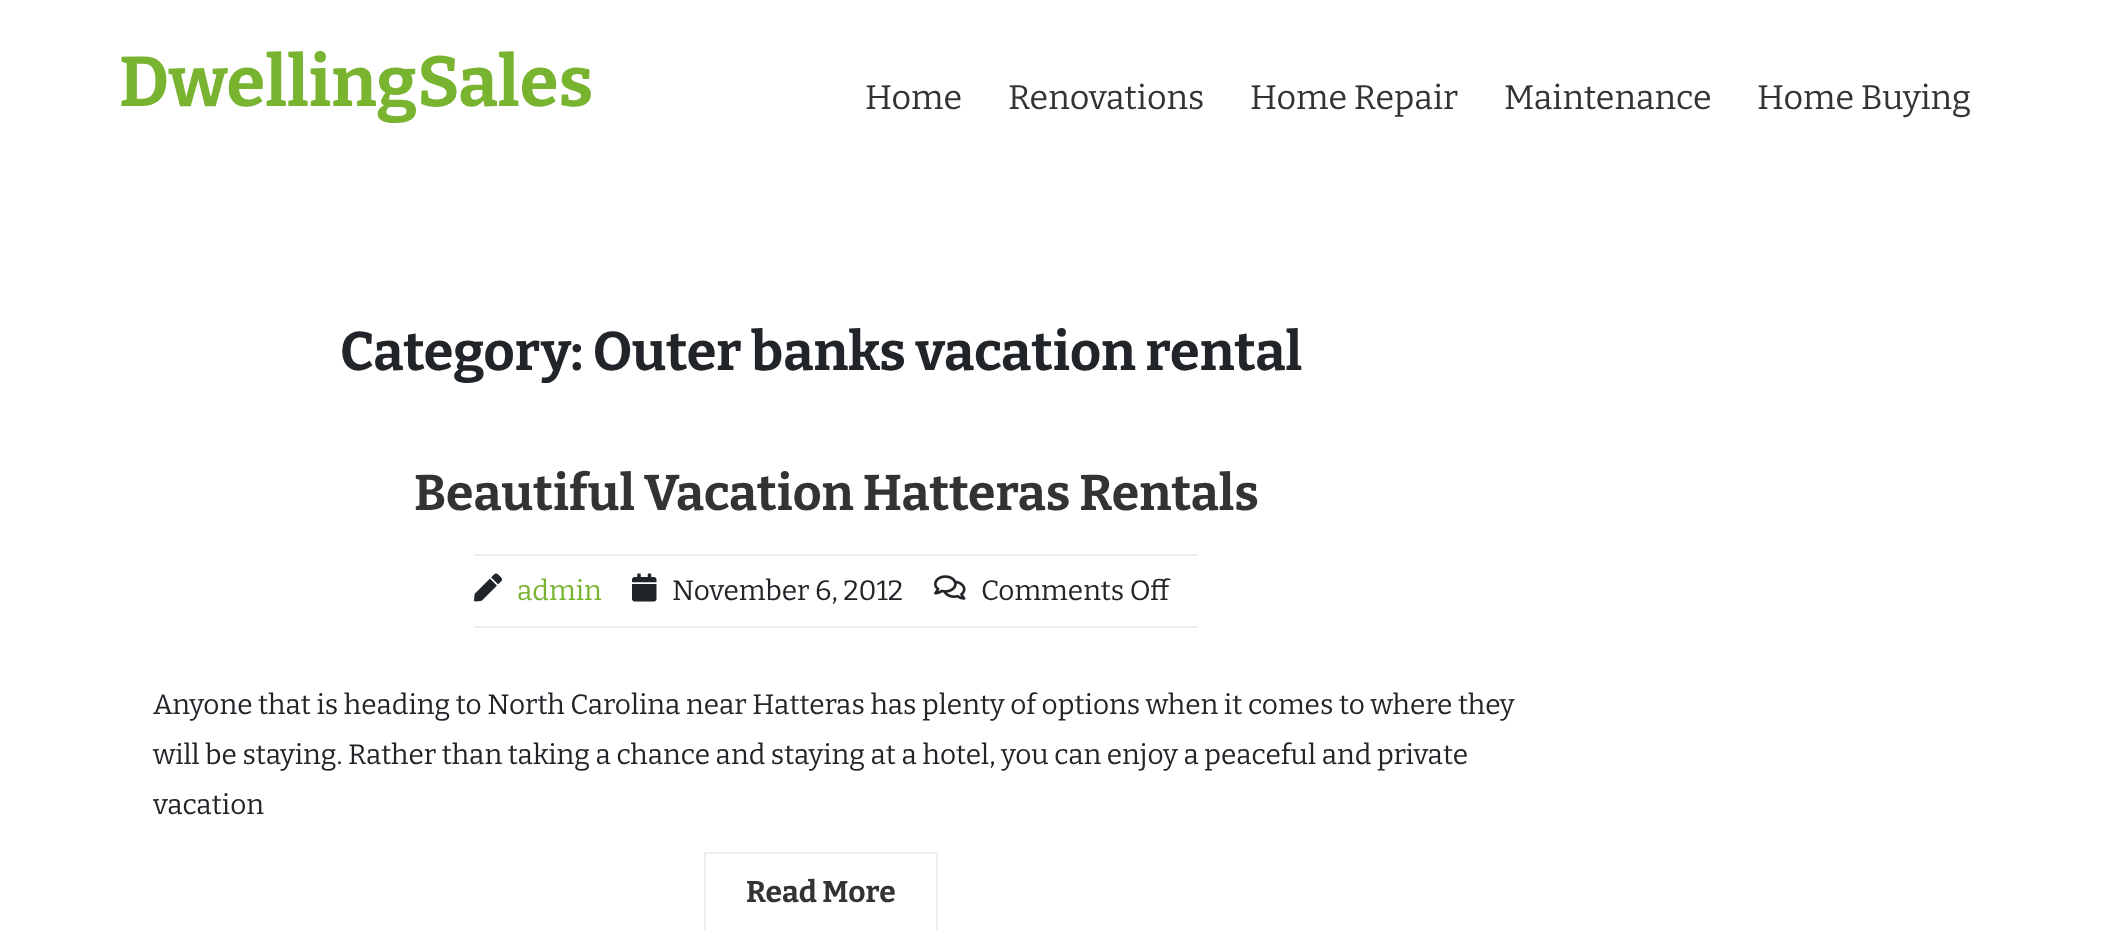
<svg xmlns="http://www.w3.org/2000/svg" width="2110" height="930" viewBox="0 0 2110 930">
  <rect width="100%" height="100%" fill="#fff"/>
  <path d="M474 554h724v2H474z" fill="#eee"/>
  <path d="M474 626h724v2H474z" fill="#eee"/>
  <image x="474" y="573" width="28" height="29" href="img/1.png"/>
  <image x="632" y="573" width="25" height="29" href="img/2.png"/>
  <image x="934" y="575" width="32" height="25" href="img/3.png"/>
  <path d="M705 853h232v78H705z" fill="none" stroke="#eee" stroke-width="2"/>
  <text x="119" y="106" font-family="Bitter" font-size="70.5" font-weight="bold" fill="#79b430">DwellingSales</text>
  <g font-family="Bitter" font-size="34" fill="#333">
    <text x="865" y="109">Home</text>
    <text x="1008" y="109">Renovations</text>
    <text x="1250" y="109">Home Repair</text>
    <text x="1504" y="109">Maintenance</text>
    <text x="1757" y="109">Home Buying</text>
  </g>
  <text x="340" y="370" font-family="Bitter" font-size="54" font-weight="bold" fill="#212529">Category: Outer banks vacation rental</text>
  <text x="414" y="510" font-family="Bitter" font-size="50" font-weight="bold" fill="#333">Beautiful Vacation Hatteras Rentals</text>
  <text x="517" y="600" font-family="Bitter" font-size="28" fill="#79b430">admin</text>
  <g font-family="Bitter" font-size="28" fill="#212529">
    <text x="672" y="600">November 6, 2012</text>
    <text x="981" y="600">Comments Off</text>
    <text x="153" y="714">Anyone that is heading to North Carolina near Hatteras has plenty of options when it comes to where they</text>
    <text x="153" y="764">will be staying. Rather than taking a chance and staying at a hotel, you can enjoy a peaceful and private</text>
    <text x="153" y="814">vacation</text>
  </g>
  <text x="746" y="902" font-family="Bitter" font-size="30" font-weight="bold" fill="#333">Read More</text>
</svg>
